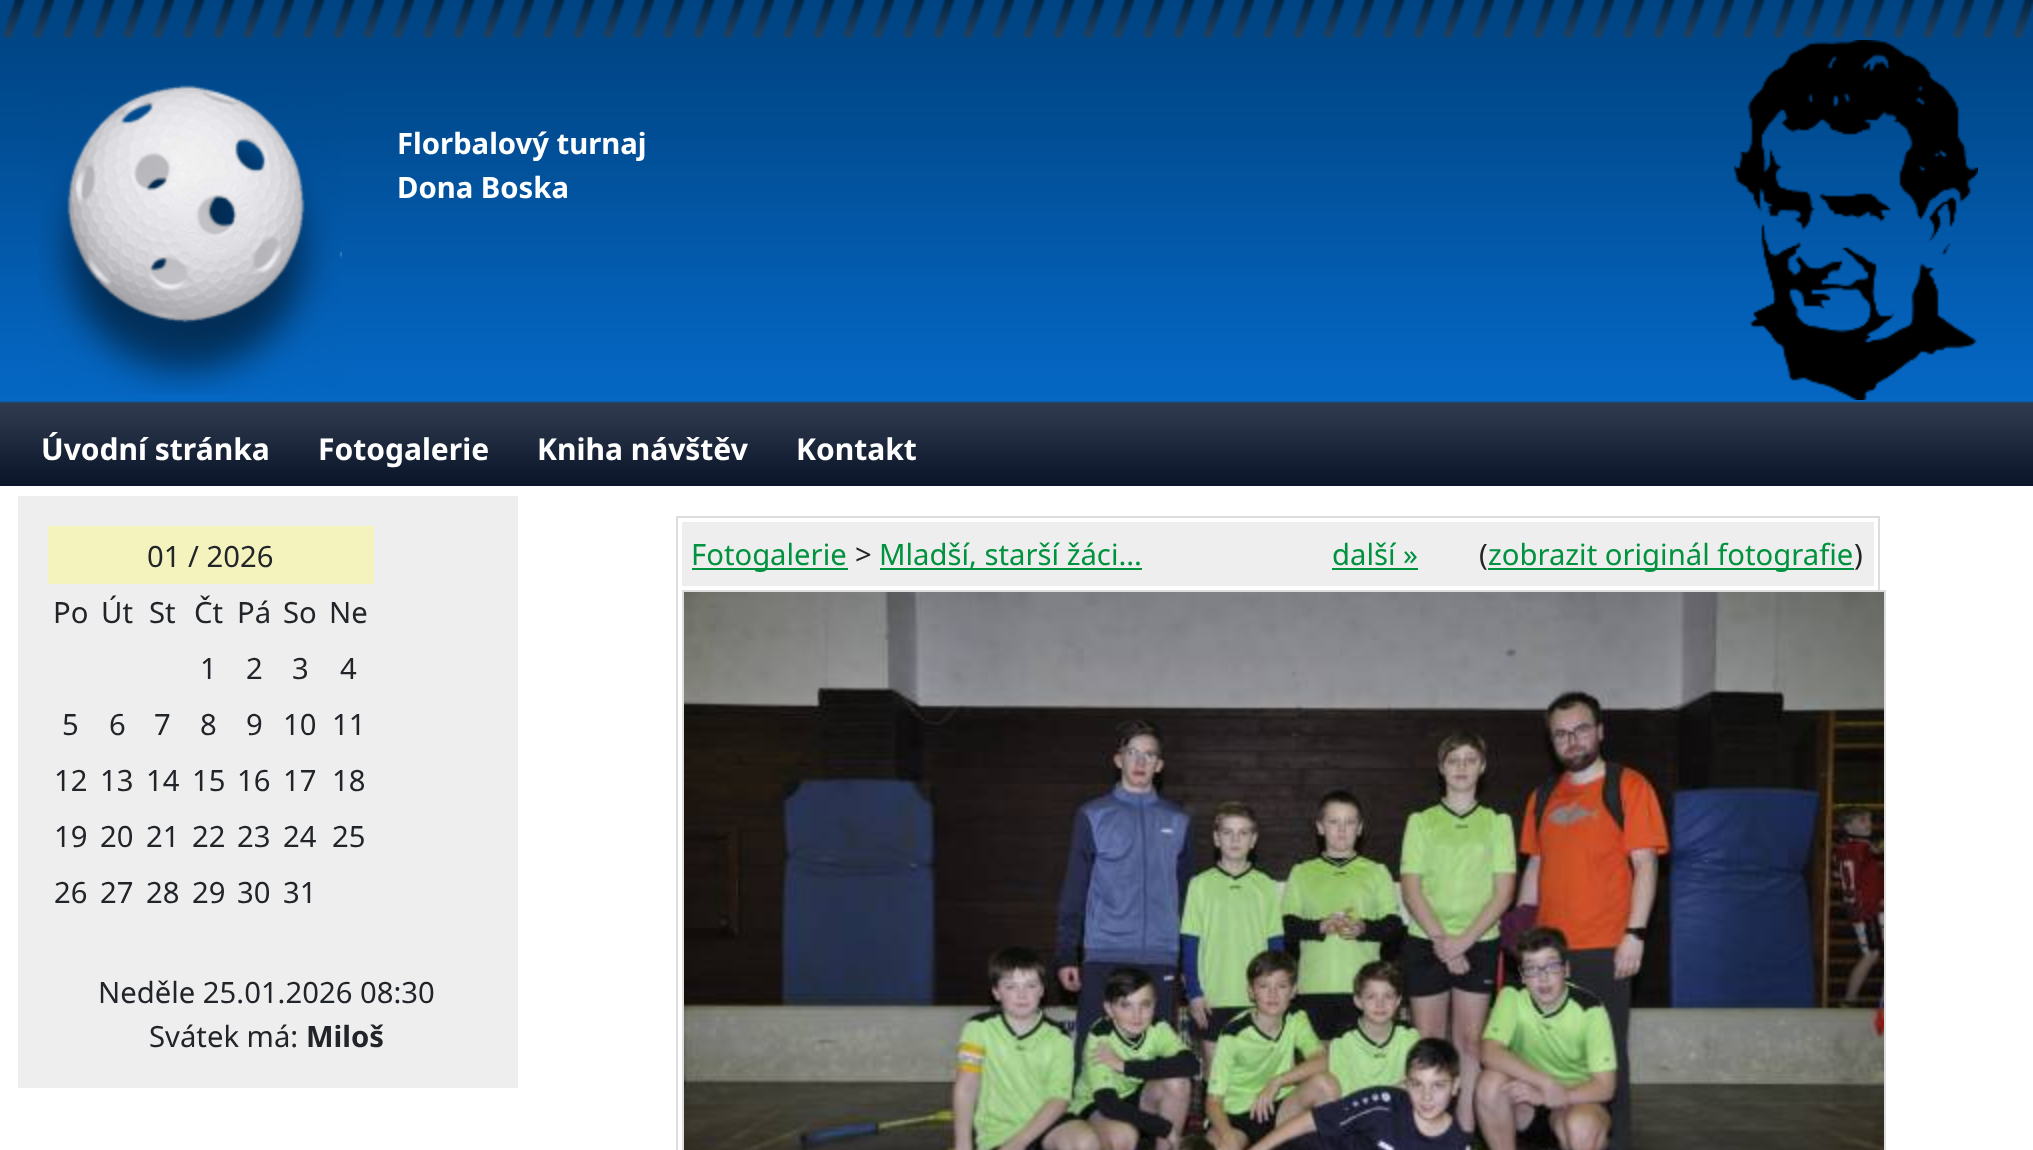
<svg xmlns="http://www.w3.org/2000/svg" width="2033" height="1150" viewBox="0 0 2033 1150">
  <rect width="100%" height="100%" fill="#fff"/>
  <image x="0" y="0" width="2033" height="486" href="img/1.png"/>
  <image x="2" y="0" width="2031" height="38" href="img/2.png"/>
  <image x="39" y="85" width="303" height="309" href="img/3.png"/>
  <image x="1734" y="40" width="244" height="360" href="img/4.png"/>
  <path d="M18 496h500v592H18z" fill="#eee"/>
  <path d="M48 526h326v58H48z" fill="#f5f3bd"/>
  <path d="M677 517h1202v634H677z" fill="none" stroke="#ddd" stroke-width="2"/>
  <path d="M682 522h1192v64H682z" fill="#eee"/>
  <path d="M692 568h156v2H692z" fill="#00923f"/>
  <path d="M880 568h262v2H880z" fill="#00923f"/>
  <path d="M1332 568h86v2H1332z" fill="#00923f"/>
  <path d="M1488 568h366v2H1488z" fill="#00923f"/>
  <path d="M683 591h1202v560H683z" fill="none" stroke="#ddd" stroke-width="2"/>
  <image x="684" y="592" width="1200" height="558" href="img/5.png"/>
  <g font-family="Noto Sans" font-size="29.25" font-weight="bold" fill="#fff">
    <text x="397" y="154">Florbalový turnaj</text>
    <text x="397" y="198">Dona Boska</text>
  </g>
  <g font-family="Noto Sans" font-size="30" font-weight="bold" fill="#fff">
    <text x="41" y="460">Úvodní stránka</text>
    <text x="318" y="460">Fotogalerie</text>
    <text x="537" y="460">Kniha návštěv</text>
    <text x="796" y="460">Kontakt</text>
  </g>
  <g font-family="Noto Sans" font-size="29.25" fill="#212529">
    <text x="147" y="567">01 / 2026</text>
    <text x="53" y="623">Po</text>
    <text x="101" y="623">Út</text>
    <text x="149" y="623">St</text>
    <text x="194" y="623">Čt</text>
    <text x="237" y="623">Pá</text>
    <text x="283" y="623">So</text>
    <text x="329" y="623">Ne</text>
    <text x="200" y="679">1</text>
    <text x="246" y="679">2</text>
    <text x="292" y="679">3</text>
    <text x="340" y="679">4</text>
    <text x="62" y="735">5</text>
    <text x="109" y="735">6</text>
    <text x="154" y="735">7</text>
    <text x="200" y="735">8</text>
    <text x="246" y="735">9</text>
    <text x="283" y="735">10</text>
    <text x="332" y="735">11</text>
    <text x="54" y="791">12</text>
    <text x="100" y="791">13</text>
    <text x="146" y="791">14</text>
    <text x="192" y="791">15</text>
    <text x="237" y="791">16</text>
    <text x="283" y="791">17</text>
    <text x="332" y="791">18</text>
    <text x="54" y="847">19</text>
    <text x="100" y="847">20</text>
    <text x="146" y="847">21</text>
    <text x="192" y="847">22</text>
    <text x="237" y="847">23</text>
    <text x="283" y="847">24</text>
    <text x="332" y="847">25</text>
    <text x="54" y="903">26</text>
    <text x="100" y="903">27</text>
    <text x="146" y="903">28</text>
    <text x="192" y="903">29</text>
    <text x="237" y="903">30</text>
    <text x="283" y="903">31</text>
    <text x="98" y="1003">Neděle 25.01.2026 08:30</text>
    <text x="149" y="1047">Svátek má:</text>
  </g>
  <text x="306" y="1047" font-family="Noto Sans" font-size="29.25" font-weight="bold" fill="#212529">Miloš</text>
  <text x="691" y="565" font-family="Noto Sans" font-size="29.25" fill="#00923f">Fotogalerie</text>
  <text x="855" y="565" font-family="Noto Sans" font-size="29.25" fill="#212529">&gt;</text>
  <g font-family="Noto Sans" font-size="29.25" fill="#00923f">
    <text x="879" y="565">Mladší, starší žáci...</text>
    <text x="1332" y="565">další »</text>
  </g>
  <text x="1479" y="565" font-family="Noto Sans" font-size="29.25" fill="#212529">(</text>
  <text x="1488" y="565" font-family="Noto Sans" font-size="29.25" fill="#00923f">zobrazit originál fotografie</text>
  <text x="1854" y="565" font-family="Noto Sans" font-size="29.25" fill="#212529">)</text>
</svg>
